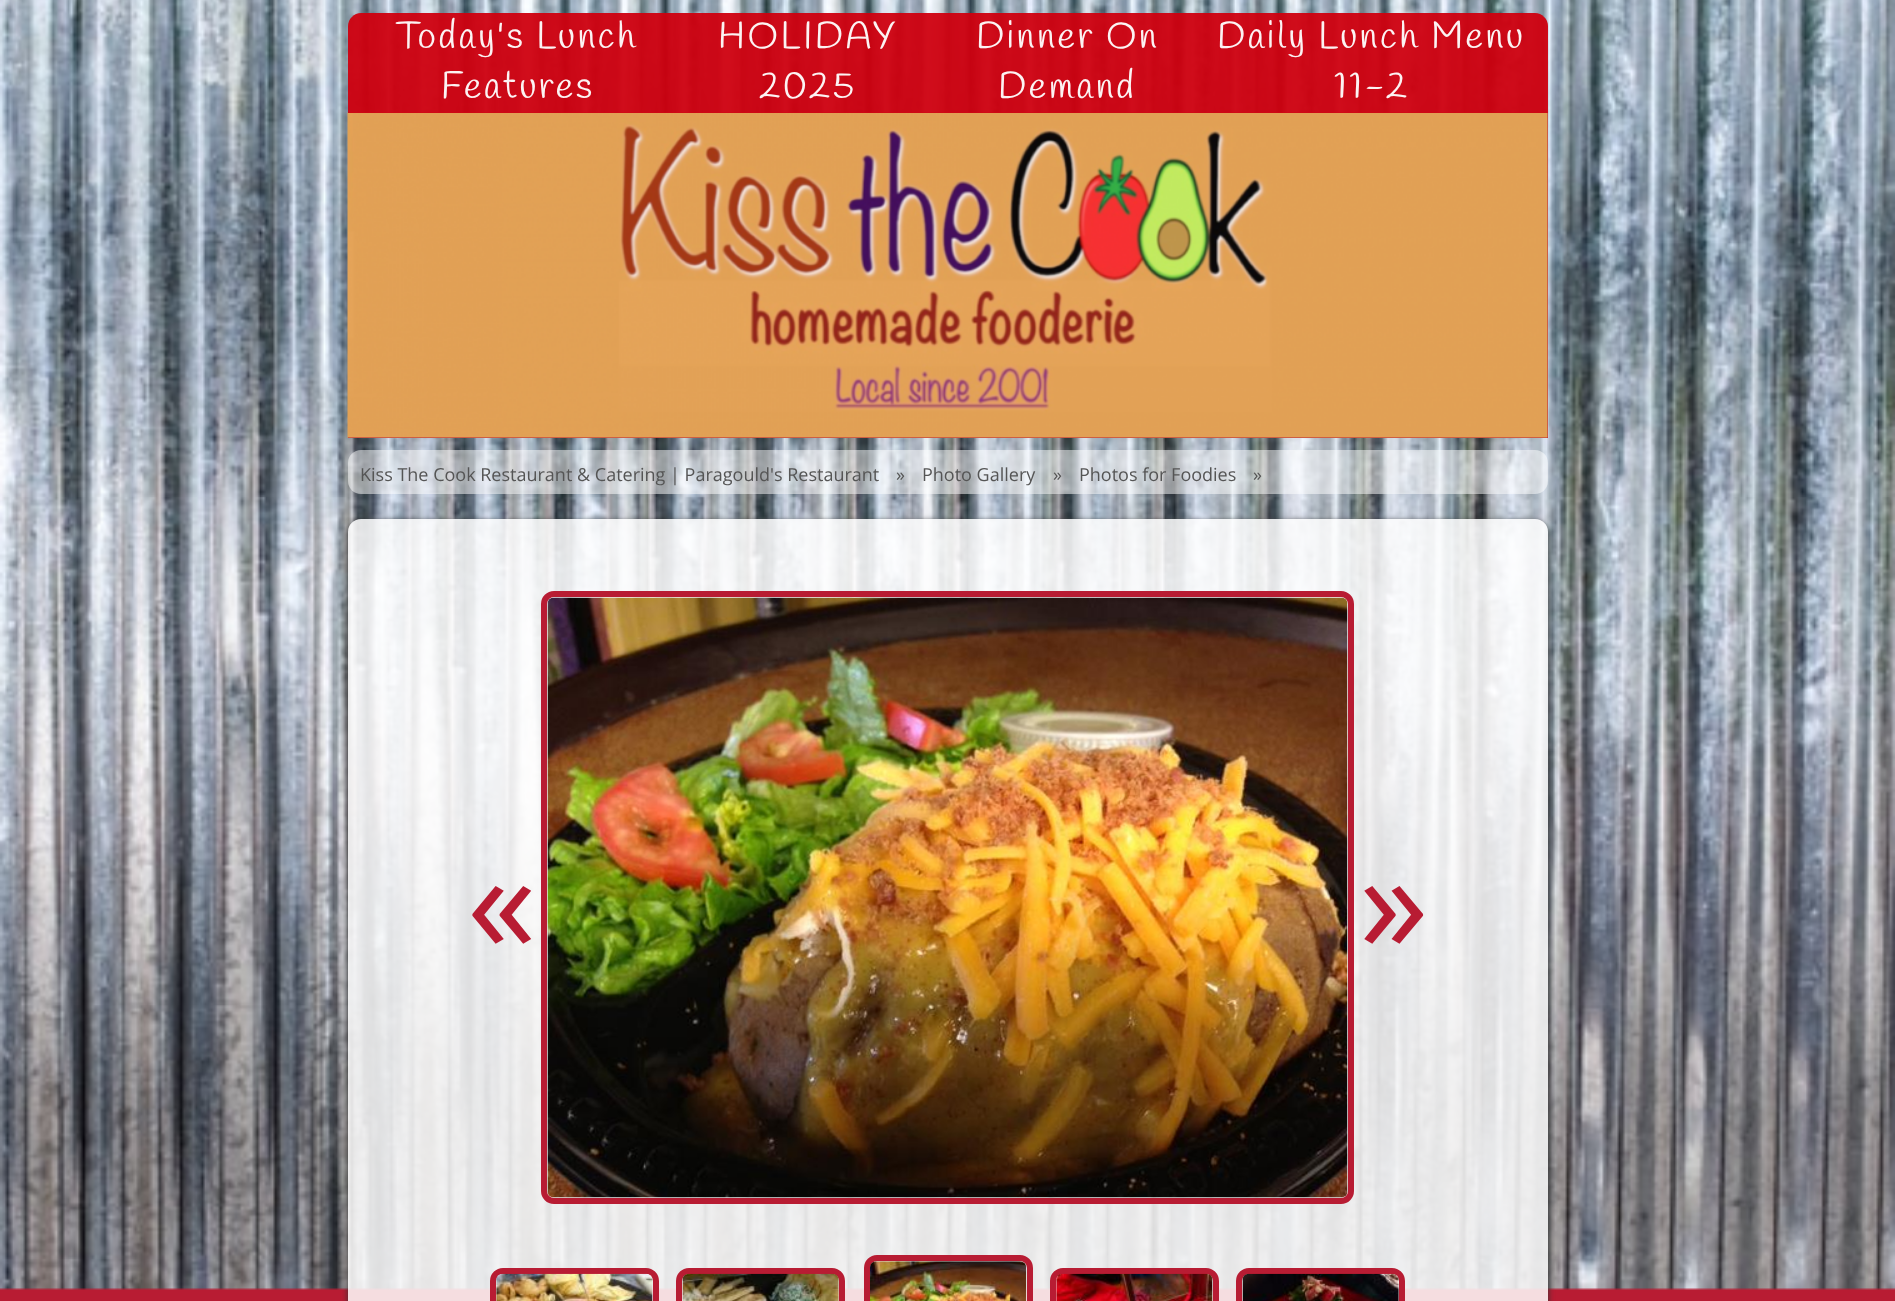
<svg xmlns="http://www.w3.org/2000/svg" width="1895" height="1301" viewBox="0 0 1895 1301">
  <defs>
    <clipPath id="clip1"><path d="M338 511H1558V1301H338ZM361 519H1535C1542 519 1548 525 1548 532V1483C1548 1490 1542 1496 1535 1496H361C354 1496 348 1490 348 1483V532C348 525 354 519 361 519Z" clip-rule="evenodd"/></clipPath>
  </defs>
  <rect width="100%" height="100%" fill="#b81c33"/>
  <image x="0" y="0" width="1895" height="1290" href="img/1.png"/>
  <path d="M348 113h1200v325H348z" fill="#b81c33"/>
  <image x="347" y="112" width="1201" height="326" href="img/2.png"/>
  <path d="M361 13H1535C1542 13 1548 19 1548 26V113H348V26C348 19 354 13 361 13Z" fill="#cf000ff2"/>
  <rect x="348" y="450" width="1200" height="44" rx="13" fill="#ffffff80"/>
  <g clip-path="url(#clip1)">
    <rect x="348" y="521" width="1200" height="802" rx="13" fill="#333" filter="blur(3px)"/>
  </g>
  <rect x="348" y="519" width="1200" height="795" rx="13" fill="#ffffffd9"/>
  <rect x="544" y="594" width="807" height="607" rx="10" fill="none" stroke="#b81c33" stroke-width="6"/>
  <image x="547" y="597" width="801" height="601" href="img/3.png"/>
  <rect x="493" y="1271" width="163" height="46" rx="10" fill="none" stroke="#b81c33" stroke-width="6"/>
  <image x="496" y="1273" width="157" height="28" href="img/4.png"/>
  <rect x="679" y="1271" width="163" height="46" rx="10" fill="none" stroke="#b81c33" stroke-width="6"/>
  <image x="682" y="1273" width="157" height="28" href="img/5.png"/>
  <rect x="867" y="1258" width="163" height="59" rx="10" fill="none" stroke="#b81c33" stroke-width="6"/>
  <image x="870" y="1261" width="157" height="40" href="img/6.png"/>
  <rect x="1053" y="1271" width="163" height="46" rx="10" fill="none" stroke="#b81c33" stroke-width="6"/>
  <image x="1056" y="1273" width="157" height="28" href="img/7.png"/>
  <rect x="1239" y="1271" width="163" height="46" rx="10" fill="none" stroke="#b81c33" stroke-width="6"/>
  <image x="1242" y="1273" width="157" height="28" href="img/8.png"/>
  <g font-family="Handlee" font-size="37.5" letter-spacing="2.5" fill="#fcf3f3">
    <text x="396" y="48">Today's Lunch</text>
    <text x="441" y="98">Features</text>
    <text x="718" y="48">HOLIDAY</text>
    <text x="759" y="98">2025</text>
    <text x="976" y="48">Dinner On</text>
    <text x="998" y="98">Demand</text>
    <text x="1217" y="48">Daily Lunch Menu</text>
    <text x="1334" y="98">11-2</text>
  </g>
  <g font-family="Open Sans" font-size="18" fill="#555">
    <text x="360" y="481">Kiss The Cook Restaurant &amp; Catering | Paragould's Restaurant</text>
    <text x="896" y="481">»</text>
    <text x="922" y="481">Photo Gallery</text>
    <text x="1053" y="481">»</text>
    <text x="1079" y="481">Photos for Foodies</text>
    <text x="1253" y="481">»</text>
  </g>
  <g font-family="Open Sans" font-size="140" fill="#b81c33">
    <text x="467" y="952">«</text>
    <text x="1359" y="952">»</text>
  </g>
</svg>
